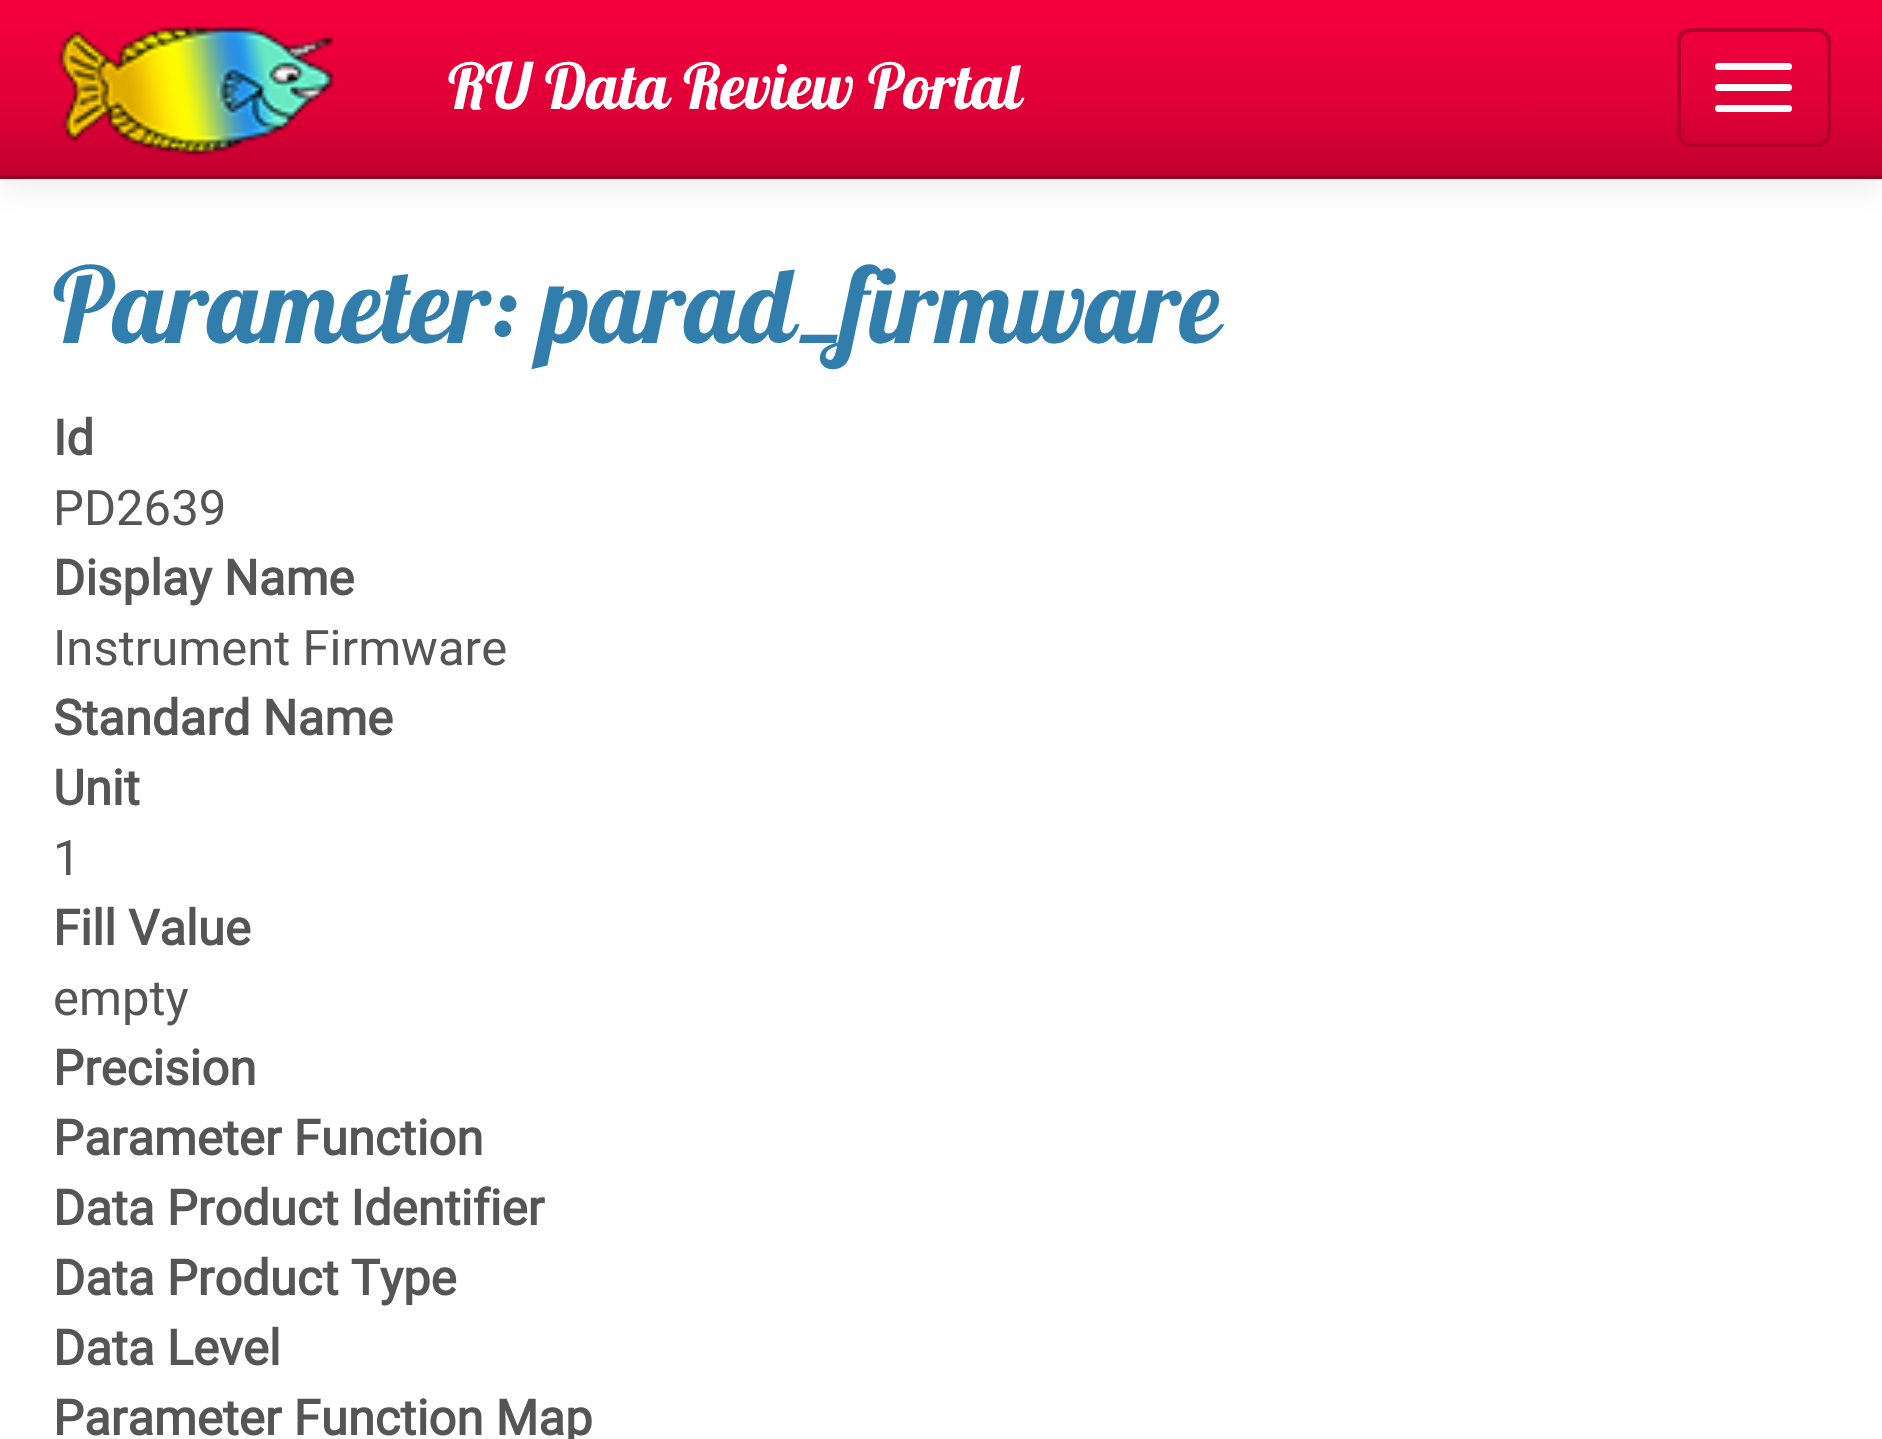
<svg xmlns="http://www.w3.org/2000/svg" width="1882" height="1439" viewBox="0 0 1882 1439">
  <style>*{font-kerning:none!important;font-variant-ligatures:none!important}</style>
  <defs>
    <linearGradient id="g1" gradientUnits="userSpaceOnUse" x1="942" y1="0" x2="942" y2="175"><stop offset="0" stop-color="#f5003d"/><stop offset="0.6" stop-color="#e00038"/><stop offset="1" stop-color="#c20030"/></linearGradient>
  </defs>
  <rect width="100%" height="100%" fill="#fff"/>
  <path d="M0 4h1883v178H0z" fill="#0000001a" filter="blur(17.5px)"/>
  <path d="M0 0h1882v175H0z" fill="url(#g1)"/>
  <path d="M0 175h1882v4H0z" fill="#990026"/>
  <image x="58" y="26" width="276" height="130" href="img/1.png"/>
  <rect x="1679" y="30" width="150" height="115" rx="12" fill="none" stroke="#b3002d" stroke-width="4"/>
  <rect x="1715" y="63" width="77" height="7" rx="3.5" fill="#fff"/>
  <rect x="1715" y="84" width="77" height="7" rx="3.5" fill="#fff"/>
  <rect x="1715" y="105" width="77" height="7" rx="3.5" fill="#fff"/>
  <text x="448" y="109" font-family="Lobster" font-size="63" fill="#fff">RU Data Review Portal</text>
  <text x="53" y="343" font-family="Lobster" font-size="105" fill="#317eac">Parameter: parad_firmware</text>
  <text x="53" y="455" font-family="Roboto" font-size="49" font-weight="bold" fill="#555">Id</text>
  <text x="53" y="525" font-family="Roboto" font-size="49" fill="#555">PD2639</text>
  <text x="53" y="595" font-family="Roboto" font-size="49" font-weight="bold" fill="#555">Display Name</text>
  <text x="53" y="665" font-family="Roboto" font-size="49" fill="#555">Instrument Firmware</text>
  <g font-family="Roboto" font-size="49" font-weight="bold" fill="#555">
    <text x="53" y="735">Standard Name</text>
    <text x="53" y="805">Unit</text>
  </g>
  <text x="53" y="875" font-family="Roboto" font-size="49" fill="#555">1</text>
  <text x="53" y="945" font-family="Roboto" font-size="49" font-weight="bold" fill="#555">Fill Value</text>
  <text x="53" y="1015" font-family="Roboto" font-size="49" fill="#555">empty</text>
  <g font-family="Roboto" font-size="49" font-weight="bold" fill="#555">
    <text x="53" y="1085">Precision</text>
    <text x="53" y="1155">Parameter Function</text>
    <text x="53" y="1225">Data Product Identifier</text>
    <text x="53" y="1295">Data Product Type</text>
    <text x="53" y="1365">Data Level</text>
    <text x="53" y="1435">Parameter Function Map</text>
  </g>
</svg>
